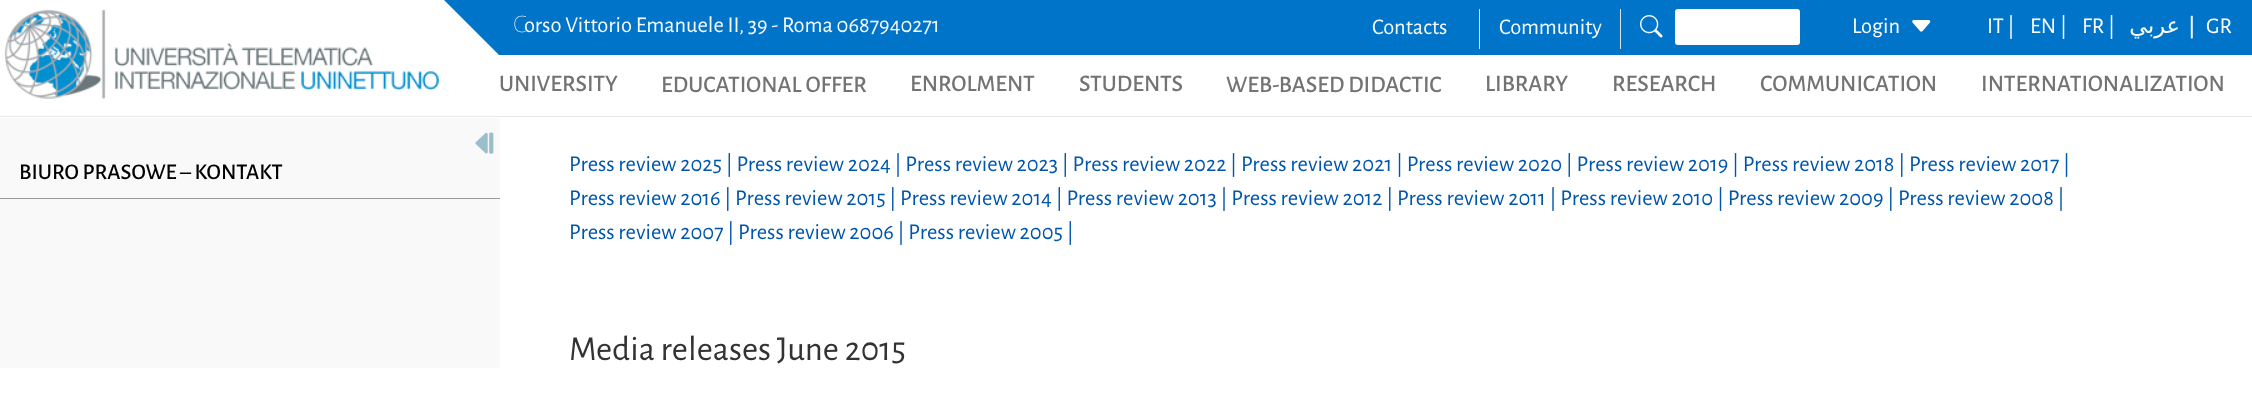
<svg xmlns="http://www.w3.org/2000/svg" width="2252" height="400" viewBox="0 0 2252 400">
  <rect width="100%" height="100%" fill="#fff"/>
  <path d="M0 116h2252v1H0z" fill="#e8e8e8"/>
  <image x="4" y="9" width="435" height="90" href="img/1.png"/>
  <path d="M499 0V55L444 0Z" fill="#0074c9"/>
  <path d="M499 0h1753v55H499z" fill="#0074c9"/>
  <path d="M1479 9h1v40H1479z" fill="#dee2e6"/>
  <path d="M1620 9h1v40H1620z" fill="#dee2e6"/>
  <image x="1640" y="15" width="23" height="23" href="img/2.png"/>
  <rect x="1675" y="9" width="125" height="36" rx="3" fill="#fff"/>
  <image x="1912" y="20" width="19" height="12" href="img/3.png"/>
  <path d="M0 118h500v250H0z" fill="#f9f9f9"/>
  <image x="475" y="132" width="19" height="22" href="img/4.png"/>
  <path d="M0 198h500v1H0z" fill="#999797"/>
  <text x="513" y="32" font-family="Noto Sans" font-size="22.5" font-weight="100" fill="#f8f9fa">C</text>
  <g font-family="Alegreya Sans" font-size="22.5" fill="#f8f9fa">
    <text x="524" y="32">orso Vittorio Emanuele II, 39 - Roma 0687940271</text>
    <text x="1372" y="34">Contacts</text>
    <text x="1499" y="34">Community</text>
  </g>
  <g font-family="Alegreya Sans" font-size="22.5" fill="#fff">
    <text x="1852" y="33">Login</text>
    <text x="1987" y="33">IT |</text>
    <text x="2030" y="33">EN |</text>
    <text x="2082" y="33">FR |</text>
  </g>
  <text x="2180" y="33" font-family="DejaVu Sans" font-size="22.5" direction="rtl" fill="#fff">عربي</text>
  <text x="2188" y="33" font-family="DejaVu Sans" font-size="22.5" fill="#fff">|</text>
  <text x="2206" y="33" font-family="Alegreya Sans" font-size="22.5" fill="#fff">GR</text>
  <g font-family="Alegreya Sans" font-size="23.75" font-weight="500" fill="#737373">
    <text x="499" y="91">UNIVERSITY</text>
    <text x="661" y="92">EDUCATIONAL OFFER</text>
    <text x="910" y="91">ENROLMENT</text>
    <text x="1079" y="91">STUDENTS</text>
    <text x="1226" y="92">WEB-BASED DIDACTIC</text>
    <text x="1485" y="91">LIBRARY</text>
    <text x="1612" y="91">RESEARCH</text>
    <text x="1760" y="91">COMMUNICATION</text>
    <text x="1981" y="91">INTERNATIONALIZATION</text>
  </g>
  <text x="19" y="179" font-family="Alegreya Sans" font-size="22.5" font-weight="500" fill="#000">BIURO PRASOWE – KONTAKT</text>
  <g font-family="Alegreya Sans" font-size="22.5" fill="#0056ac">
    <text x="569" y="171">Press review 2025 | Press review 2024 | Press review 2023 | Press review 2022 | Press review 2021 | Press review 2020 | Press review 2019 | Press review 2018 | Press review 2017 |</text>
    <text x="569" y="205">Press review 2016 | Press review 2015 | Press review 2014 | Press review 2013 | Press review 2012 | Press review 2011 | Press review 2010 | Press review 2009 | Press review 2008 |</text>
    <text x="569" y="239">Press review 2007 | Press review 2006 | Press review 2005 |</text>
  </g>
  <text x="569" y="360" font-family="Alegreya Sans" font-size="35" fill="#333">Media releases June 2015</text>
</svg>
